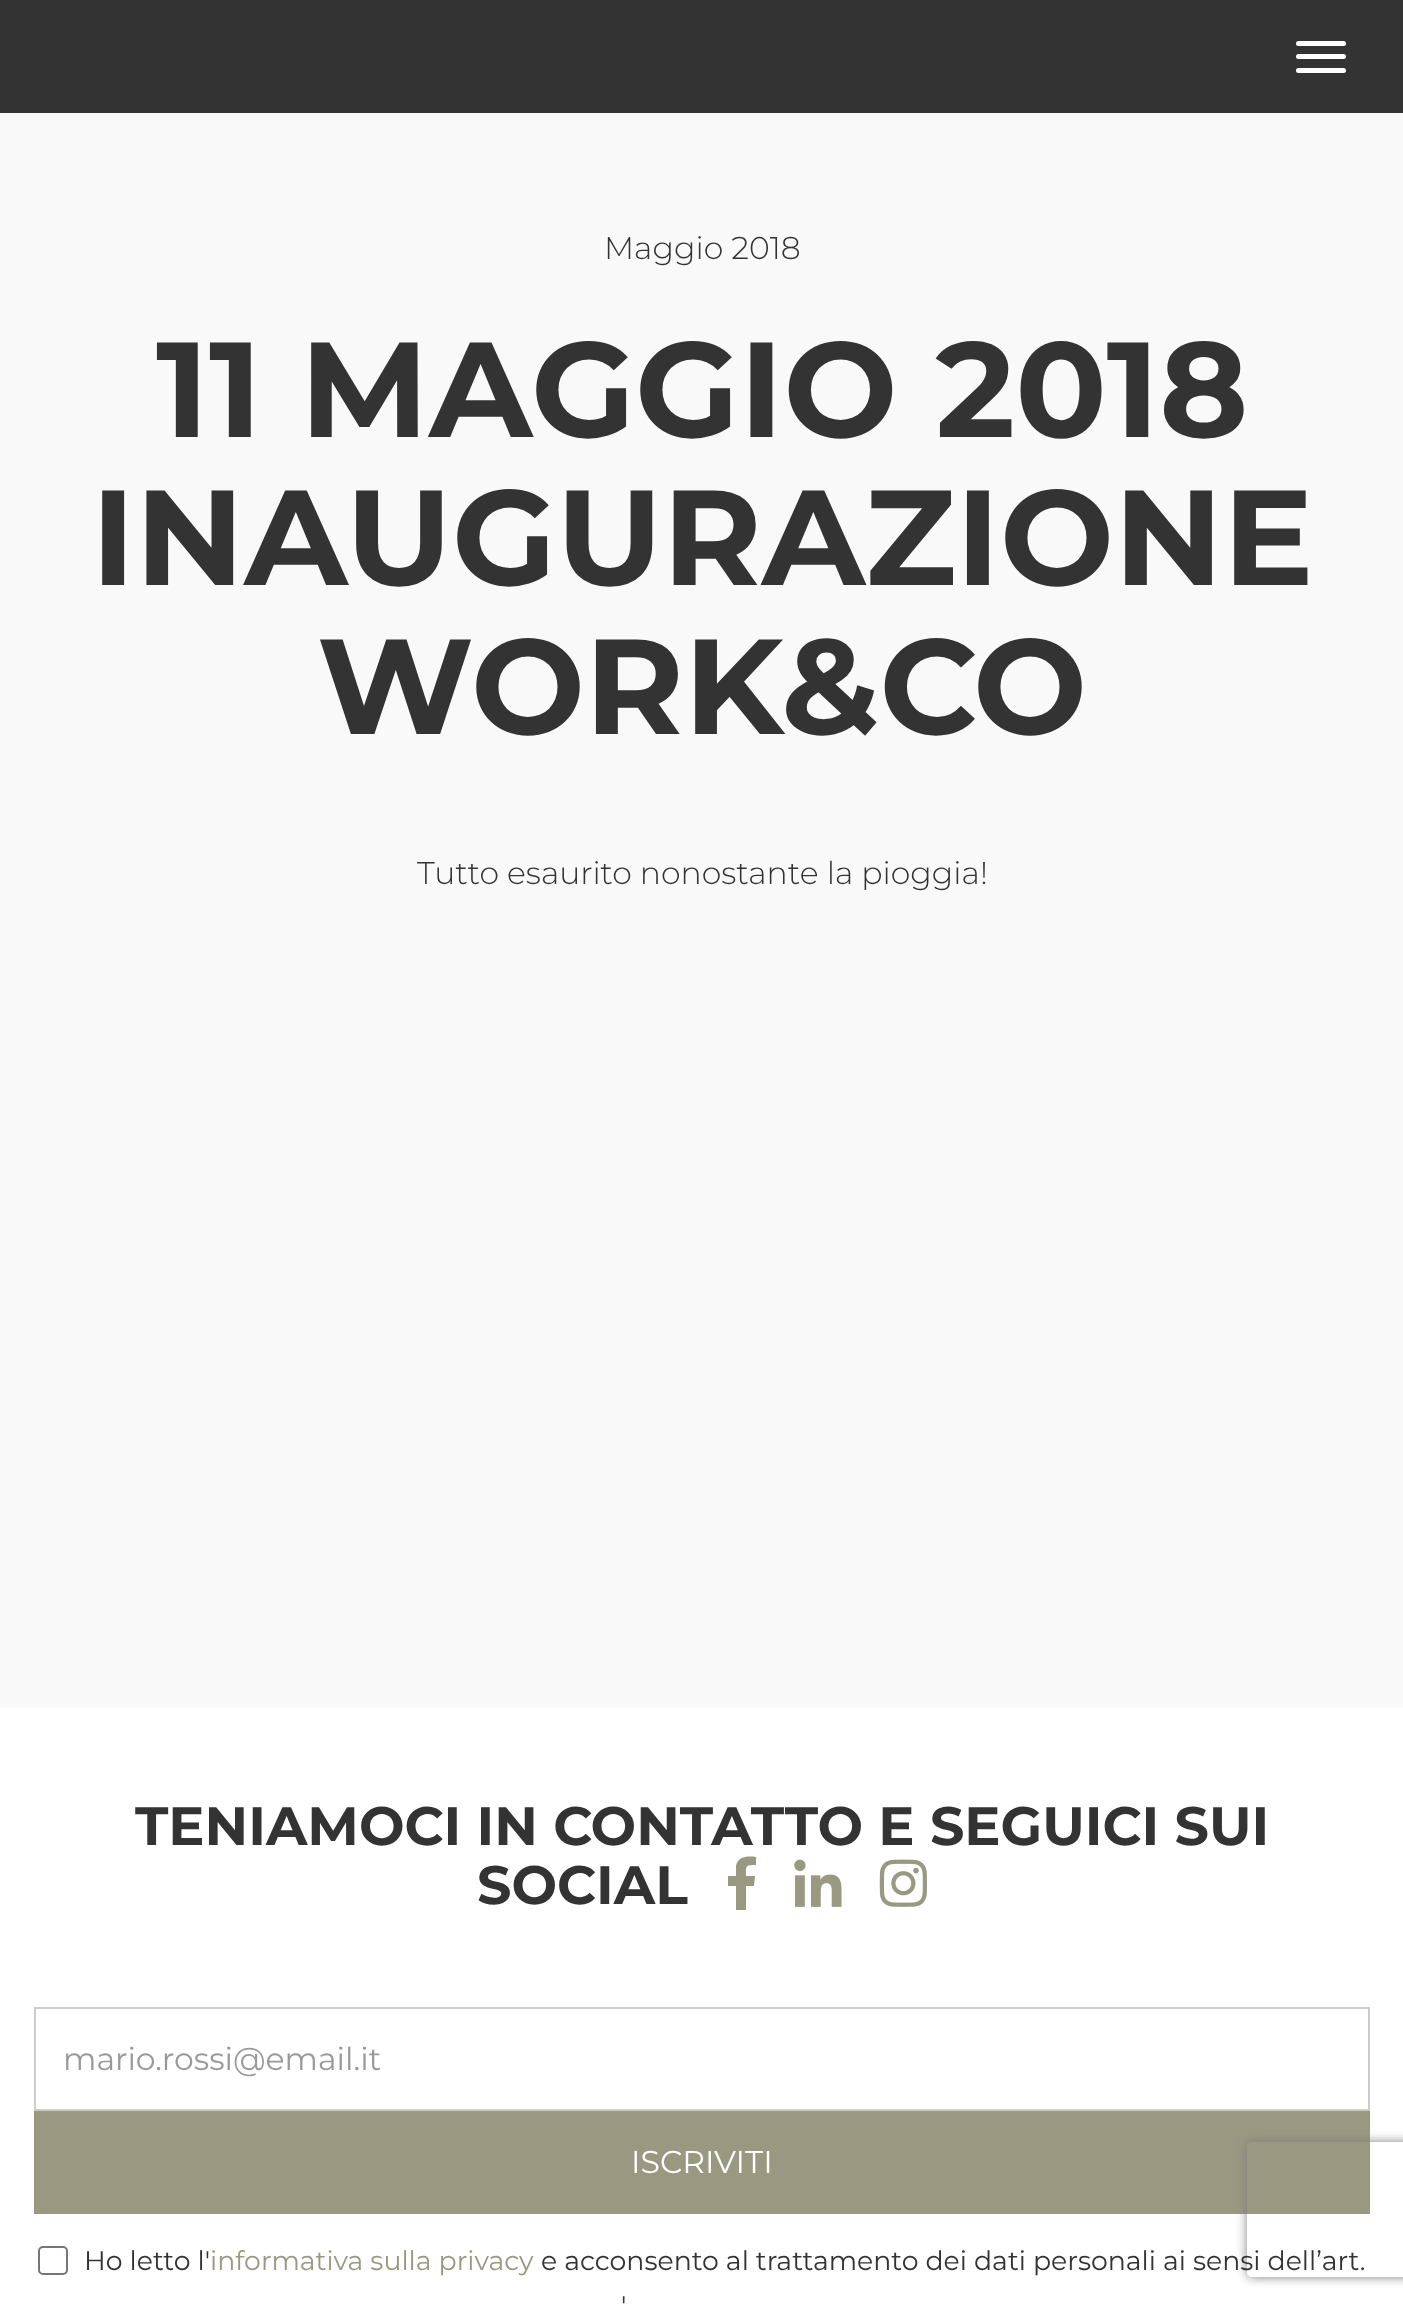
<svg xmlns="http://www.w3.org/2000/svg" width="1403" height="2308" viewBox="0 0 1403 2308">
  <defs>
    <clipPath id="clip1"><path d="M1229 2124H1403V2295H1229ZM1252 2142H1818C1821 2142 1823 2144 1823 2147V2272C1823 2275 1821 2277 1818 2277H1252C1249 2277 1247 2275 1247 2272V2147C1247 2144 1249 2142 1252 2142Z" clip-rule="evenodd"/></clipPath>
  </defs>
  <rect width="100%" height="100%" fill="#f9f9f9"/>
  <path d="M0 0h1403v113H0z" fill="#333"/>
  <rect x="1296" y="41" width="50" height="5" rx="2.5" fill="#fff"/>
  <rect x="1296" y="54" width="50" height="5" rx="2.5" fill="#fff"/>
  <rect x="1296" y="68" width="50" height="5" rx="2.5" fill="#fff"/>
  <path d="M0 1708h1403v600H0z" fill="#fff"/>
  <path d="M736 1910V1886H728V1876H736V1866C738 1856 748 1856 756 1857V1865C745 1865 746 1866 746 1876H755L754 1886H746V1910" fill="#999881"/>
  <image x="794" y="1859" width="48" height="48" href="img/1.png"/>
  <image x="879" y="1859" width="48" height="48" href="img/2.png"/>
  <path d="M35 2008h1334v102H35z" fill="none" stroke="#ccc" stroke-width="2"/>
  <path d="M34 2111h1336v103H34z" fill="#999881"/>
  <rect x="39" y="2247" width="28" height="27" rx="4" fill="none" stroke="#767676" stroke-width="2"/>
  <g clip-path="url(#clip1)">
    <rect x="1247" y="2142" width="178" height="135" rx="5" fill="#808080" filter="blur(5.5px)"/>
  </g>
  <text x="604" y="259" font-family="Montserrat" font-size="31.5" font-weight="300" fill="#333">Maggio 2018</text>
  <g font-family="Montserrat" font-size="135" font-weight="bold" fill="#333">
    <text x="156" y="437">11 MAGGIO 2018</text>
    <text x="91" y="585">INAUGURAZIONE</text>
    <text x="317" y="734">WORK&amp;CO</text>
  </g>
  <text x="417" y="884" font-family="Montserrat" font-size="31.5" font-weight="300" fill="#333">Tutto esaurito nonostante la pioggia!</text>
  <g font-family="Montserrat" font-size="54" font-weight="bold" fill="#333">
    <text x="135" y="1845">TENIAMOCI IN CONTATTO E SEGUICI SUI</text>
    <text x="477" y="1904">SOCIAL</text>
  </g>
  <text x="63" y="2070" font-family="Montserrat" font-size="31.5" fill="#999">mario.rossi@email.it</text>
  <text x="631" y="2173" font-family="Montserrat" font-size="31.5" fill="#fff">ISCRIVITI</text>
  <text x="84" y="2270" font-family="Montserrat" font-size="26.75" fill="#333">Ho letto l'</text>
  <text x="210" y="2270" font-family="Montserrat" font-size="26.75" fill="#999881">informativa sulla privacy</text>
  <g font-family="Montserrat" font-size="26.75" fill="#333">
    <text x="541" y="2270">e acconsento al trattamento dei dati personali ai sensi dell’art.</text>
    <text x="621" y="2315">'</text>
  </g>
</svg>
